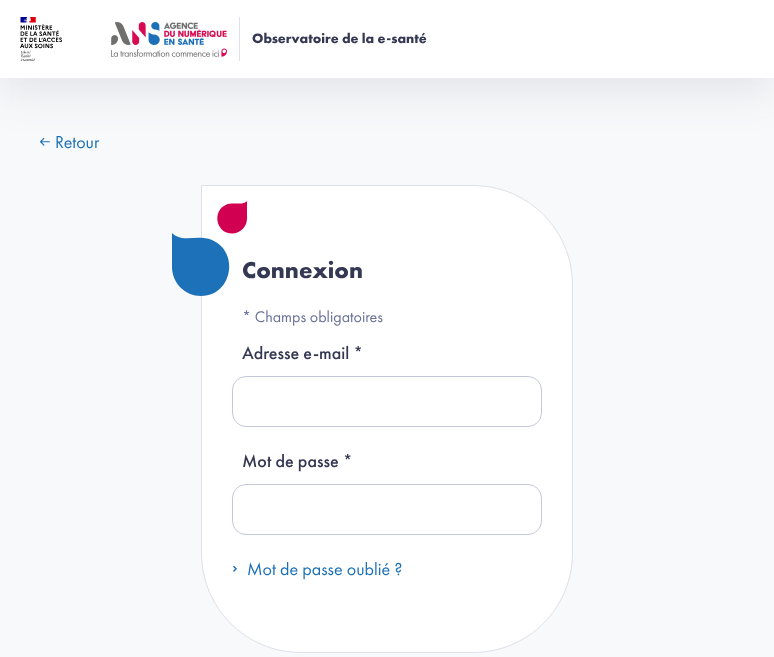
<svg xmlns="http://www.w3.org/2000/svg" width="774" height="657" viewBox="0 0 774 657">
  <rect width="100%" height="100%" fill="#f8f9fb"/>
  <image x="40" y="137" width="10" height="9" href="img/3.png"/>
  <path d="M0 15h774v78H0z" fill="#3438521a" filter="blur(20px)"/>
  <path d="M0 0h774v78H0z" fill="#fff"/>
  <path d="M239 17h1v44H239z" fill="#dee0ea"/>
  <image x="20" y="17" width="42" height="44" href="img/1.png"/>
  <image x="111" y="22" width="116" height="35" href="img/2.png"/>
  <path d="M201.5 185.5H473C528 185.5 572.5 230 572.5 285V553C572.5 608 528 652.5 473 652.5H301C246 652.5 201.5 608 201.5 553Z" fill="#fff" stroke="#dee0ea"/>
  <path d="M201 296C185 296 172 283 172 267V233C175 236 178 237 182 238C192 239 202 236 212 240C240 252 232 296 201 296" fill="#1d71b8" fill-rule="evenodd"/>
  <path d="M232 233.5C240.5 233.5 247 226.5 247 218.5V201C245.5 202.5 243.5 203 242 203.5C236.5 204 231 202.5 226.5 204.5C211.5 211 216 233.5 232 233.5" fill="#d20050" fill-rule="evenodd"/>
  <rect x="232.5" y="376.5" width="309" height="50" rx="13.5" fill="none" stroke="#c5c8da"/>
  <rect x="232.5" y="484.5" width="309" height="50" rx="13.5" fill="none" stroke="#c5c8da"/>
  <image x="233" y="565" width="4" height="7" href="img/4.png"/>
  <text x="252" y="43" font-family="Futura PT" font-size="14" font-weight="bold" fill="#343852">Observatoire de la e-santé</text>
  <text x="55" y="148" font-family="Futura PT" font-size="18" fill="#1d71b8">Retour</text>
  <text x="242" y="278" font-family="Futura PT" font-size="24" font-weight="bold" fill="#343852">Connexion</text>
  <text x="242" y="322" font-family="Futura PT" font-size="16" fill="#697097">* Champs obligatoires</text>
  <g font-family="Futura PT" font-size="18" font-weight="500" fill="#343852">
    <text x="242" y="359">Adresse e-mail *</text>
    <text x="242" y="467">Mot de passe *</text>
  </g>
  <text x="247" y="575" font-family="Futura PT" font-size="18" fill="#1d71b8">Mot de passe oublié ?</text>
</svg>
